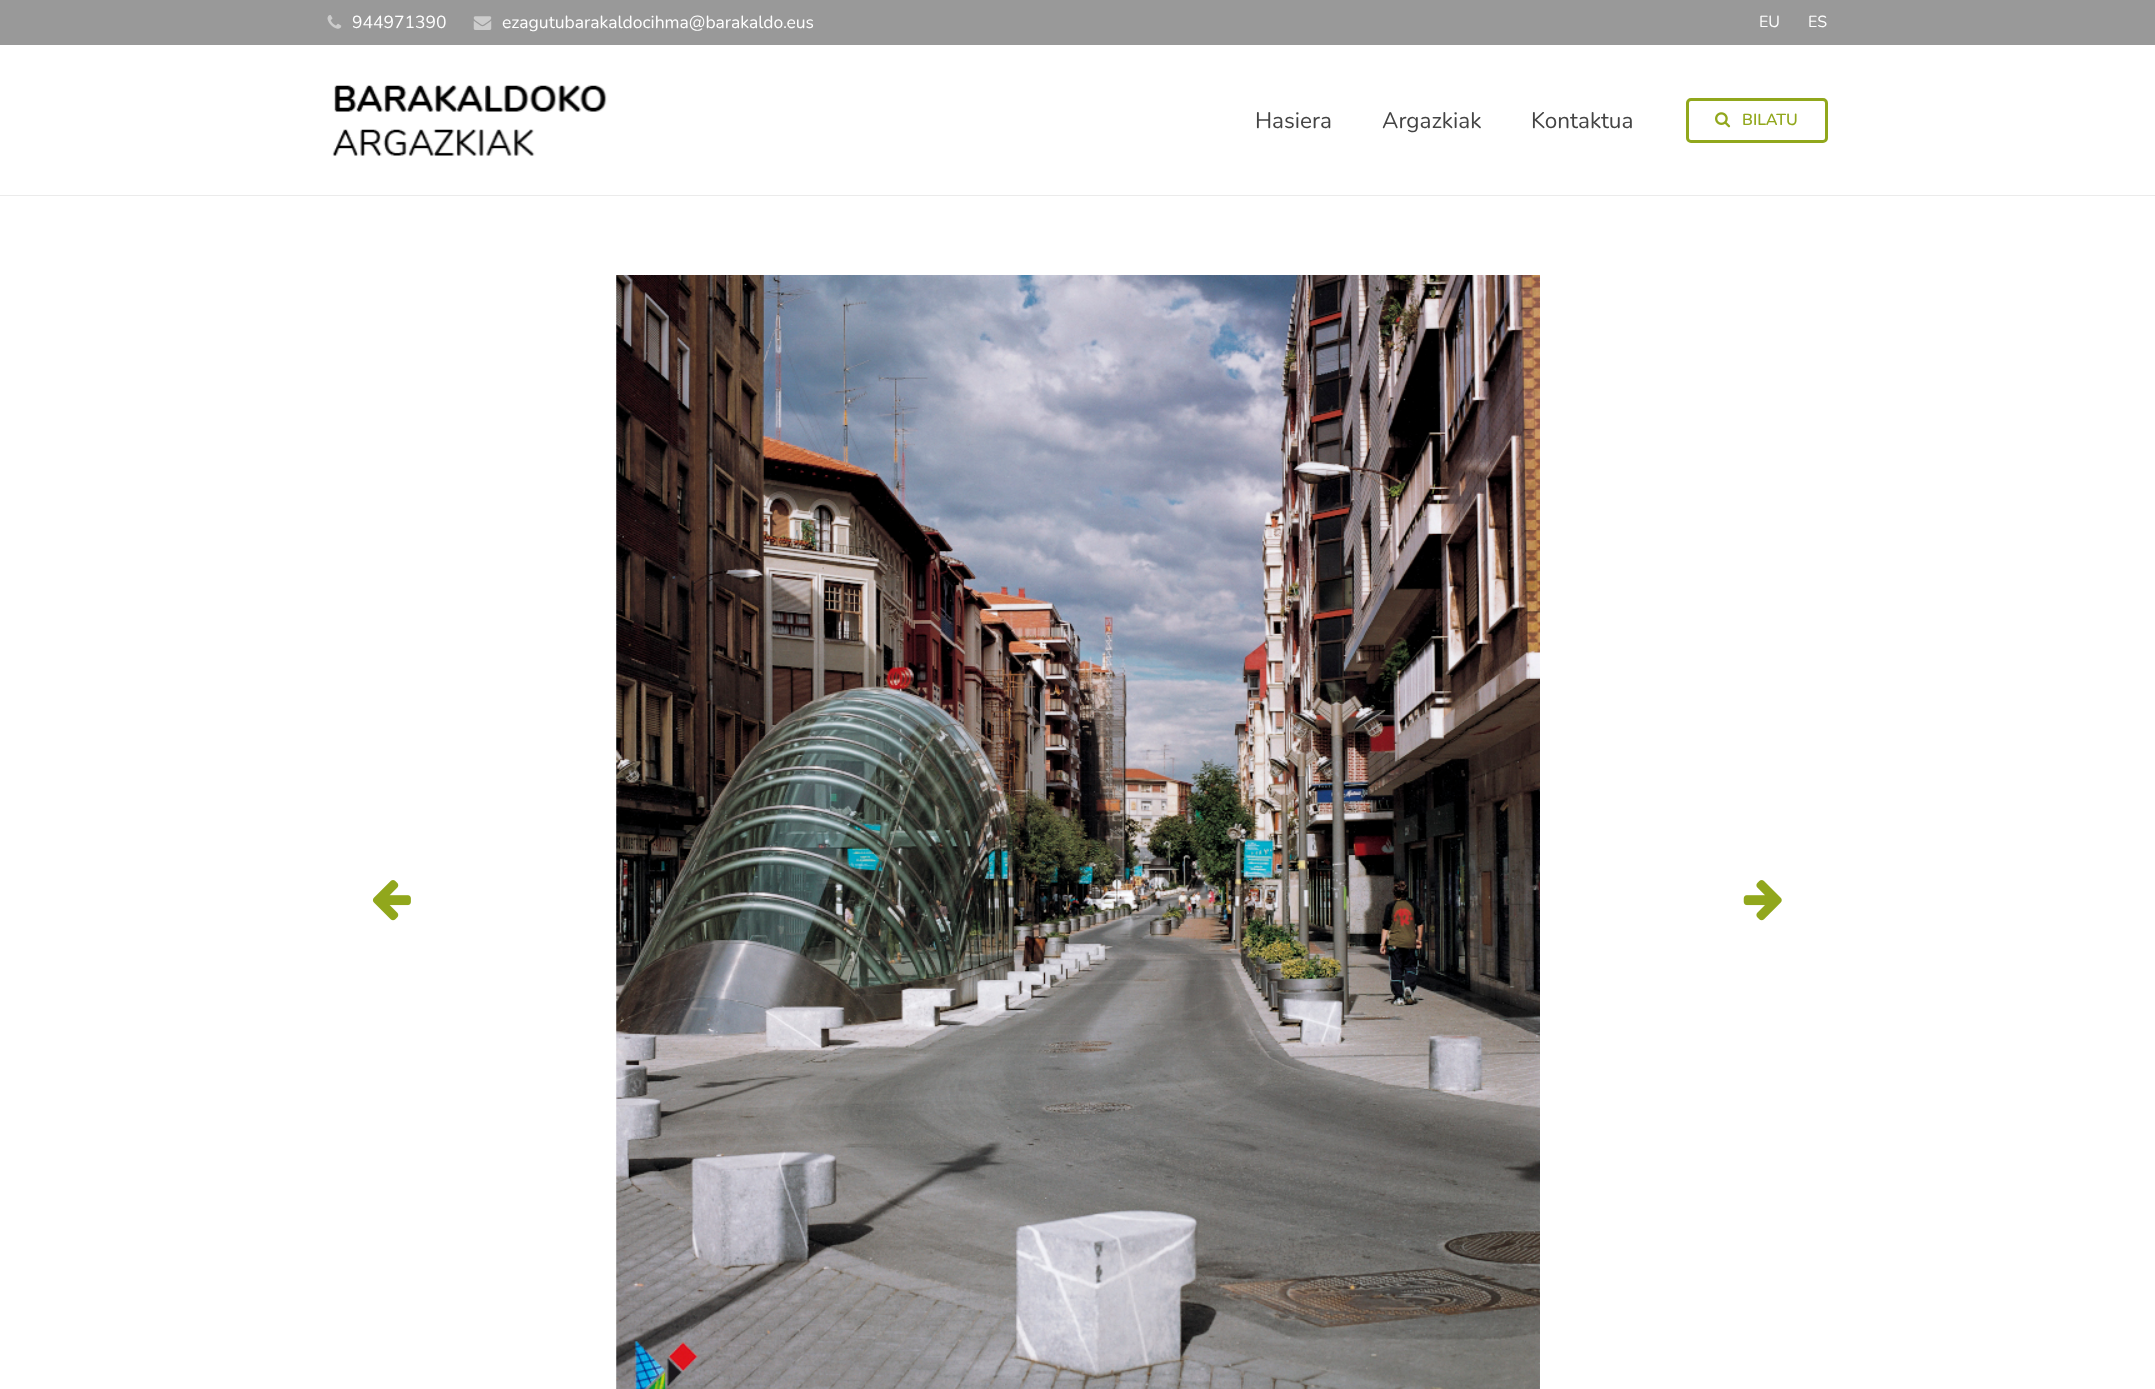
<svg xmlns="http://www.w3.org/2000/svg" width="2155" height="1389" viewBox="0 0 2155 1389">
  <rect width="100%" height="100%" fill="#fff"/>
  <path d="M0 0h2155v45H0z" fill="#999"/>
  <image x="327" y="15" width="15" height="14" href="img/1.png"/>
  <image x="473" y="16" width="19" height="14" href="img/2.png"/>
  <path d="M0 195h2155v1H0z" fill="#ebebeb"/>
  <image x="332" y="85" width="275" height="71" href="img/3.png"/>
  <image x="1715" y="112" width="16" height="16" href="img/4.png"/>
  <rect x="1687.5" y="99.5" width="139" height="42" rx="3.5" fill="none" stroke="#91a71c" stroke-width="3"/>
  <image x="372" y="880" width="39" height="41" href="img/5.png"/>
  <image x="616" y="275" width="924" height="1114" href="img/6.png"/>
  <image x="1743" y="880" width="39" height="41" href="img/7.png"/>
  <g font-family="Nunito" font-size="17.5" fill="#fff">
    <text x="352" y="28">944971390</text>
    <text x="502" y="28">ezagutubarakaldocihma@barakaldo.eus</text>
  </g>
  <g font-family="Nunito" font-size="16" fill="#fff">
    <text x="1759" y="27">EU</text>
    <text x="1808" y="27">ES</text>
  </g>
  <g font-family="Nunito" font-size="22.5" fill="#444">
    <text x="1255" y="128">Hasiera</text>
    <text x="1382" y="128">Argazkiak</text>
    <text x="1531" y="128">Kontaktua</text>
  </g>
  <text x="1742" y="125" font-family="Nunito" font-size="16" font-weight="600" fill="#91a71c">BILATU</text>
</svg>
